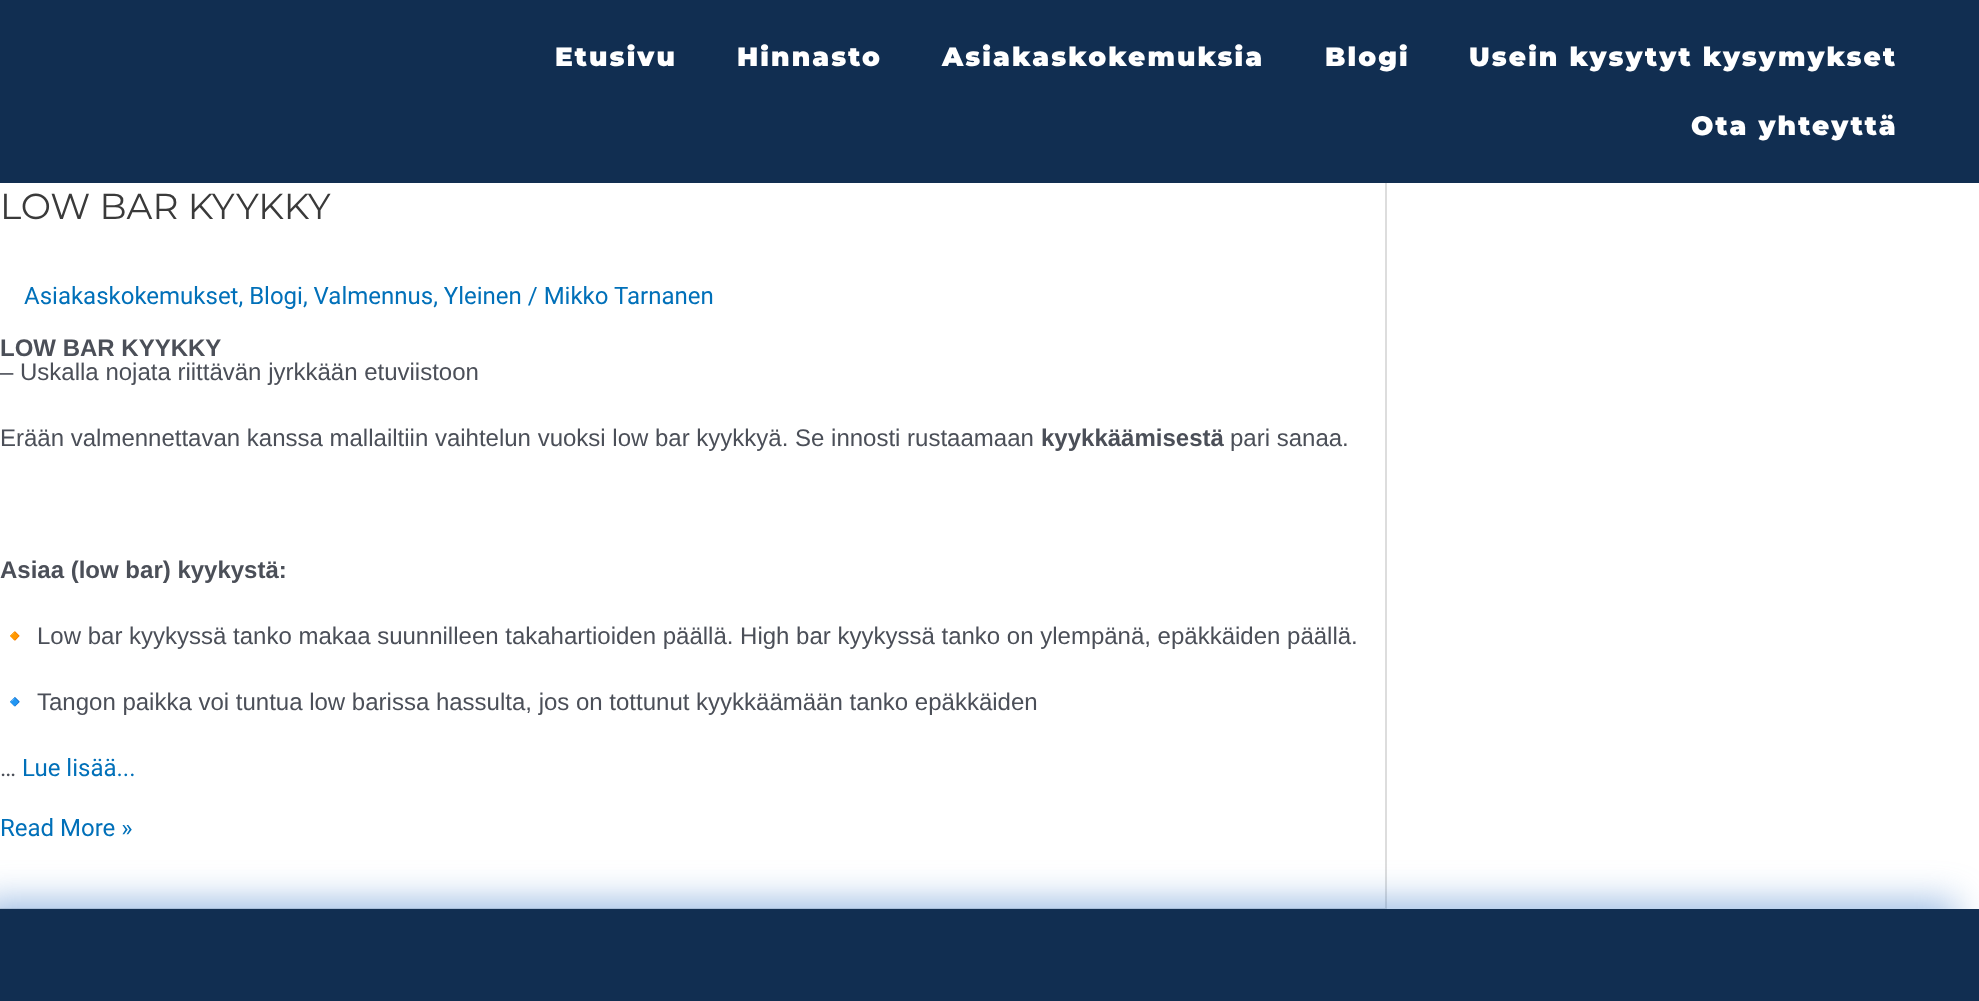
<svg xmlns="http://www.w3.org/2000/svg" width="1979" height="1001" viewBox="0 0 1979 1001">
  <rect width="100%" height="100%" fill="#fff"/>
  <path d="M0 0h1979v183H0z" fill="#112e51"/>
  <path d="M1385 183h2v726H1385z" fill="#ddd"/>
  <path d="M0 908h1385v1H0z" fill="#ddd"/>
  <path d="M-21 902h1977v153H-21z" fill="#4381cb8f" filter="blur(18px)"/>
  <path d="M0 909h1979v92H0z" fill="#112e51"/>
  <g font-family="Montserrat" font-size="26.4" font-weight="900" letter-spacing="2.1" fill="#fff">
    <text x="555" y="66">Etusivu</text>
    <text x="737" y="66">Hinnasto</text>
    <text x="942" y="66">Asiakaskokemuksia</text>
    <text x="1325" y="66">Blogi</text>
    <text x="1469" y="66">Usein kysytyt kysymykset</text>
    <text x="1691" y="135">Ota yhteyttä</text>
  </g>
  <text x="0" y="219" font-family="Montserrat" font-size="36" fill="#3a3a3a">LOW BAR KYYKKY</text>
  <text x="24" y="304" font-family="Roboto" font-size="24" fill="#0170b9">Asiakaskokemukset, Blogi, Valmennus, Yleinen / Mikko Tarnanen</text>
  <text x="0" y="356" font-family="Liberation Sans" font-size="24" font-weight="bold" fill="#4b4f58">LOW BAR KYYKKY</text>
  <g font-family="Liberation Sans" font-size="24" fill="#4b4f58">
    <text x="0" y="380">– Uskalla nojata riittävän jyrkkään etuviistoon</text>
    <text x="0" y="446">Erään valmennettavan kanssa mallailtiin vaihtelun vuoksi low bar kyykkyä. Se innosti rustaamaan</text>
  </g>
  <text x="1041" y="446" font-family="Liberation Sans" font-size="24" font-weight="bold" fill="#4b4f58">kyykkäämisestä</text>
  <text x="1230" y="446" font-family="Liberation Sans" font-size="24" fill="#4b4f58">pari sanaa.</text>
  <text x="0" y="578" font-family="Liberation Sans" font-size="24" font-weight="bold" fill="#4b4f58">Asiaa (low bar) kyykystä:</text>
  <text x="0" y="644" font-family="Noto Color Emoji" font-size="24" fill="#4b4f58">🔸</text>
  <text x="37" y="644" font-family="Liberation Sans" font-size="24" fill="#4b4f58">Low bar kyykyssä tanko makaa suunnilleen takahartioiden päällä. High bar kyykyssä tanko on ylempänä, epäkkäiden päällä.</text>
  <text x="0" y="710" font-family="Noto Color Emoji" font-size="24" fill="#4b4f58">🔹</text>
  <text x="37" y="710" font-family="Liberation Sans" font-size="24" fill="#4b4f58">Tangon paikka voi tuntua low barissa hassulta, jos on tottunut kyykkäämään tanko epäkkäiden</text>
  <text x="0" y="776" font-family="Roboto" font-size="24" fill="#4b4f58">…</text>
  <g font-family="Roboto" font-size="24" fill="#0170b9">
    <text x="22" y="776">Lue lisää...</text>
    <text x="0" y="836">Read More »</text>
  </g>
</svg>
